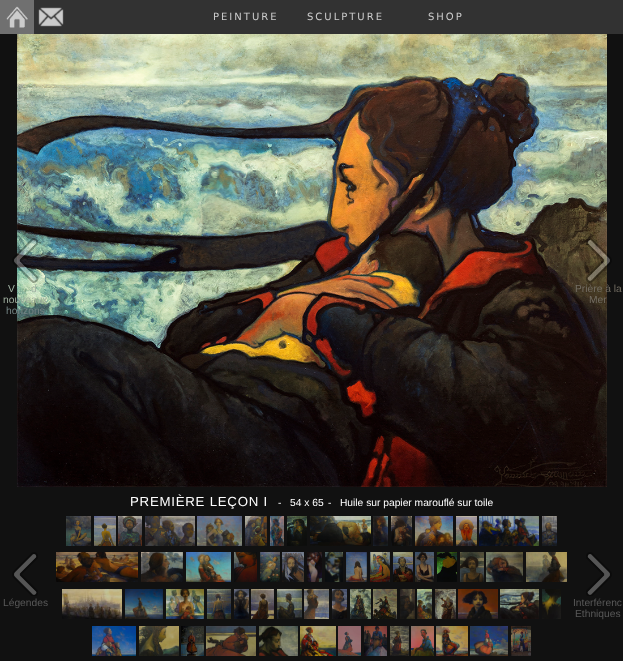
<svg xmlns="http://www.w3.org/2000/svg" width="623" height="661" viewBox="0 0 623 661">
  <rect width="100%" height="100%" fill="#111"/>
  <path d="M34 0h589v34H34z" fill="#323232"/>
  <path d="M0 0h34v34H0z" fill="#707070"/>
  <image x="6" y="6" width="22" height="22" href="img/1.png"/>
  <image x="38" y="7" width="26" height="20" href="img/2.png"/>
  <image x="17" y="34" width="590" height="453" href="img/3.png"/>
  <image x="12" y="238" width="27" height="45" href="img/4.png"/>
  <image x="585" y="238" width="27" height="45" href="img/5.png"/>
  <image x="66" y="516" width="25" height="30" href="img/6.png"/>
  <image x="94" y="516" width="22" height="30" href="img/7.png"/>
  <image x="118" y="516" width="24" height="30" href="img/8.png"/>
  <image x="145" y="516" width="50" height="30" href="img/9.png"/>
  <image x="197" y="516" width="45" height="30" href="img/10.png"/>
  <image x="245" y="516" width="22" height="30" href="img/11.png"/>
  <image x="270" y="516" width="14" height="30" href="img/12.png"/>
  <image x="287" y="516" width="20" height="30" href="img/13.png"/>
  <image x="310" y="516" width="61" height="30" href="img/14.png"/>
  <image x="373" y="516" width="15" height="30" href="img/15.png"/>
  <image x="391" y="516" width="21" height="30" href="img/16.png"/>
  <image x="415" y="516" width="38" height="30" href="img/17.png"/>
  <image x="456" y="516" width="21" height="30" href="img/18.png"/>
  <image x="479" y="516" width="60" height="30" href="img/19.png"/>
  <image x="542" y="516" width="15" height="30" href="img/20.png"/>
  <image x="56" y="552" width="82" height="30" href="img/21.png"/>
  <image x="141" y="552" width="42" height="30" href="img/22.png"/>
  <image x="186" y="552" width="45" height="30" href="img/23.png"/>
  <image x="234" y="552" width="23" height="30" href="img/24.png"/>
  <image x="260" y="552" width="20" height="30" href="img/25.png"/>
  <image x="282" y="552" width="22" height="30" href="img/26.png"/>
  <image x="307" y="552" width="15" height="30" href="img/27.png"/>
  <image x="325" y="552" width="18" height="30" href="img/28.png"/>
  <image x="346" y="552" width="21" height="30" href="img/29.png"/>
  <image x="370" y="552" width="20" height="30" href="img/30.png"/>
  <image x="393" y="552" width="20" height="30" href="img/31.png"/>
  <image x="415" y="552" width="19" height="30" href="img/32.png"/>
  <image x="437" y="552" width="20" height="30" href="img/33.png"/>
  <image x="460" y="552" width="24" height="30" href="img/34.png"/>
  <image x="486" y="552" width="37" height="30" href="img/35.png"/>
  <image x="526" y="552" width="41" height="30" href="img/36.png"/>
  <image x="62" y="589" width="60" height="30" href="img/37.png"/>
  <image x="125" y="589" width="38" height="30" href="img/38.png"/>
  <image x="166" y="589" width="38" height="30" href="img/39.png"/>
  <image x="207" y="589" width="24" height="30" href="img/40.png"/>
  <image x="234" y="589" width="15" height="30" href="img/41.png"/>
  <image x="251" y="589" width="23" height="30" href="img/42.png"/>
  <image x="277" y="589" width="25" height="30" href="img/43.png"/>
  <image x="304" y="589" width="25" height="30" href="img/44.png"/>
  <image x="332" y="589" width="15" height="30" href="img/45.png"/>
  <image x="350" y="589" width="21" height="30" href="img/46.png"/>
  <image x="373" y="589" width="24" height="30" href="img/47.png"/>
  <image x="400" y="589" width="15" height="30" href="img/48.png"/>
  <image x="417" y="589" width="15" height="30" href="img/49.png"/>
  <image x="435" y="589" width="21" height="30" href="img/50.png"/>
  <image x="458" y="589" width="40" height="30" href="img/51.png"/>
  <image x="500" y="589" width="39" height="30" href="img/52.png"/>
  <image x="542" y="589" width="19" height="30" href="img/53.png"/>
  <image x="92" y="626" width="44" height="30" href="img/54.png"/>
  <image x="139" y="626" width="40" height="30" href="img/55.png"/>
  <image x="181" y="626" width="23" height="30" href="img/56.png"/>
  <image x="206" y="626" width="50" height="30" href="img/57.png"/>
  <image x="259" y="626" width="39" height="30" href="img/58.png"/>
  <image x="300" y="626" width="36" height="30" href="img/59.png"/>
  <image x="338" y="626" width="23" height="30" href="img/60.png"/>
  <image x="364" y="626" width="23" height="30" href="img/61.png"/>
  <image x="390" y="626" width="19" height="30" href="img/62.png"/>
  <image x="411" y="626" width="23" height="30" href="img/63.png"/>
  <image x="436" y="626" width="32" height="30" href="img/64.png"/>
  <image x="470" y="626" width="38" height="30" href="img/65.png"/>
  <image x="511" y="626" width="20" height="30" href="img/66.png"/>
  <image x="12" y="552" width="26" height="44" href="img/67.png"/>
  <image x="586" y="552" width="26" height="44" href="img/68.png"/>
  <g font-family="DejaVu Sans" font-size="10" letter-spacing="2" fill="#ccc">
    <text x="213" y="20">PEINTURE</text>
    <text x="307" y="20">SCULPTURE</text>
    <text x="428" y="20">SHOP</text>
  </g>
  <g font-family="Liberation Sans" font-size="10.25" fill="#a4b5a6">
    <text x="8" y="292">V</text>
    <text x="31" y="292">d</text>
  </g>
  <text x="3" y="303" font-family="Liberation Sans" font-size="10.25" fill="#9fae9e">nouveaux</text>
  <text x="6" y="314" font-family="Liberation Sans" font-size="10.25" fill="#738383">horizons</text>
  <g font-family="Liberation Sans" font-size="10.25" fill="#736d62">
    <text x="575" y="292">Prière à la</text>
    <text x="589" y="303">Mer</text>
  </g>
  <text x="130" y="506" font-family="Liberation Sans" font-size="13.25" letter-spacing="0.75" fill="#fff">PREMIÈRE LEÇON I</text>
  <g font-family="Liberation Sans" font-size="10.25" fill="#fff">
    <text x="278" y="506" xml:space="preserve">-   54 x 65</text>
    <text x="328" y="506" xml:space="preserve">-   Huile sur papier marouflé sur toile</text>
  </g>
  <g font-family="Liberation Sans" font-size="10.25" fill="#585858">
    <text x="3" y="606">Légendes</text>
    <text x="573" y="606">Interférenc</text>
    <text x="575" y="617">Ethniques</text>
  </g>
</svg>
